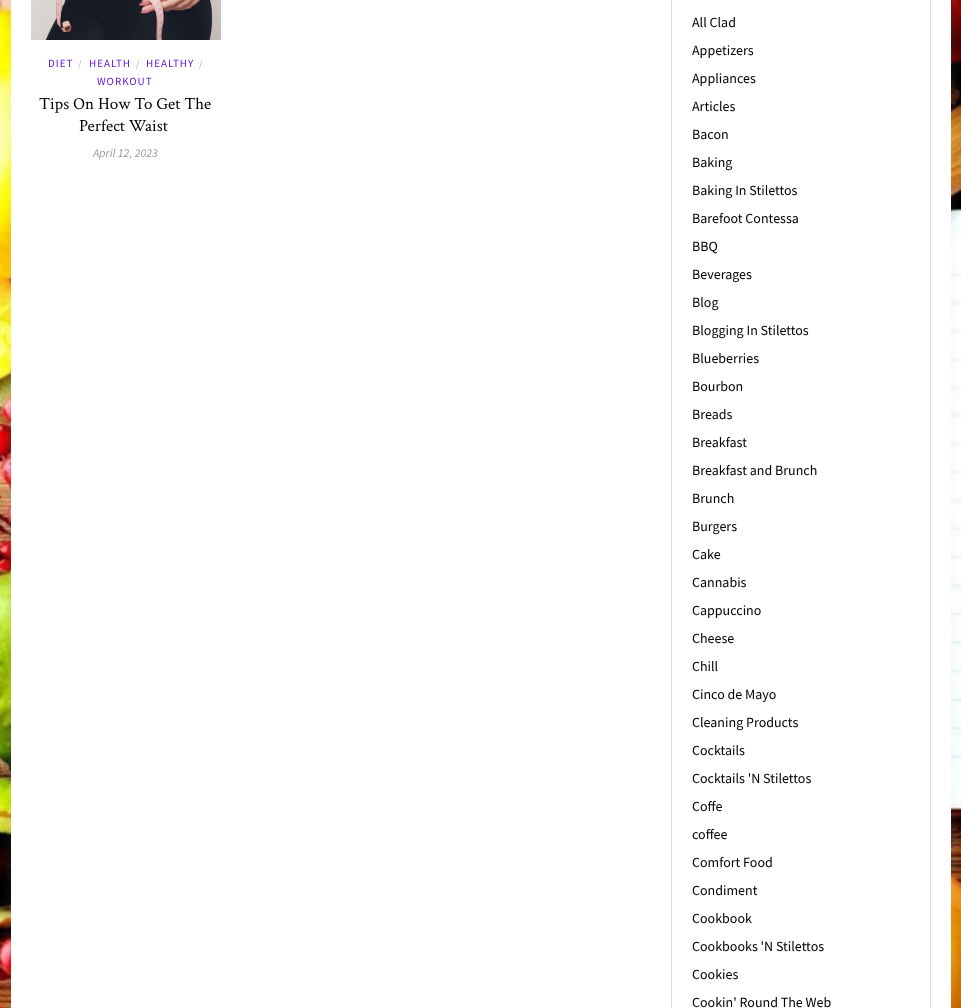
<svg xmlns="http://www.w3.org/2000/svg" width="961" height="1008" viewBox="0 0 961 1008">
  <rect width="100%" height="100%" fill="#fff"/>
  <image x="0" y="0" width="961" height="1008" href="img/1.png"/>
  <rect x="6" y="-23" width="950" height="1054" rx="15" fill="#c8c8c80d" filter="blur(2.5px)"/>
  <path d="M11 0h940v1008H11z" fill="#fff"/>
  <image x="31" y="0" width="190" height="40" href="img/2.png"/>
  <path d="M671.5 -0.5h259v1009H671.5z" fill="none" stroke="#ddd"/>
  <text x="48" y="67" font-family="Source Sans Pro" font-size="11" letter-spacing="1" fill="#631ad8">DIET</text>
  <text x="78" y="67" font-family="Source Sans Pro" font-size="10" fill="#b5b5b5">/</text>
  <text x="89" y="67" font-family="Source Sans Pro" font-size="11" letter-spacing="1" fill="#631ad8">HEALTH</text>
  <text x="136" y="67" font-family="Source Sans Pro" font-size="10" fill="#b5b5b5">/</text>
  <text x="146" y="67" font-family="Source Sans Pro" font-size="11" letter-spacing="1" fill="#631ad8">HEALTHY</text>
  <text x="199" y="67" font-family="Source Sans Pro" font-size="10" fill="#b5b5b5">/</text>
  <text x="97" y="85" font-family="Source Sans Pro" font-size="11" letter-spacing="1" fill="#631ad8">WORKOUT</text>
  <g font-family="Crimson Text" font-size="17" fill="#000">
    <text x="39" y="109">Tips On How To Get The</text>
    <text x="79" y="131">Perfect Waist</text>
  </g>
  <text x="93" y="157" font-family="Source Sans Pro" font-size="12" font-style="italic" fill="#999">April 12, 2023</text>
  <g font-family="Source Sans Pro" font-size="14" fill="#000">
    <text x="692" y="27">All Clad</text>
    <text x="692" y="55">Appetizers</text>
    <text x="692" y="83">Appliances</text>
    <text x="692" y="111">Articles</text>
    <text x="692" y="139">Bacon</text>
    <text x="692" y="167">Baking</text>
    <text x="692" y="195">Baking In Stilettos</text>
    <text x="692" y="223">Barefoot Contessa</text>
    <text x="692" y="251">BBQ</text>
    <text x="692" y="279">Beverages</text>
    <text x="692" y="307">Blog</text>
    <text x="692" y="335">Blogging In Stilettos</text>
    <text x="692" y="363">Blueberries</text>
    <text x="692" y="391">Bourbon</text>
    <text x="692" y="419">Breads</text>
    <text x="692" y="447">Breakfast</text>
    <text x="692" y="475">Breakfast and Brunch</text>
    <text x="692" y="503">Brunch</text>
    <text x="692" y="531">Burgers</text>
    <text x="692" y="559">Cake</text>
    <text x="692" y="587">Cannabis</text>
    <text x="692" y="615">Cappuccino</text>
    <text x="692" y="643">Cheese</text>
    <text x="692" y="671">Chill</text>
    <text x="692" y="699">Cinco de Mayo</text>
    <text x="692" y="727">Cleaning Products</text>
    <text x="692" y="755">Cocktails</text>
    <text x="692" y="783">Cocktails 'N Stilettos</text>
    <text x="692" y="811">Coffe</text>
    <text x="692" y="839">coffee</text>
    <text x="692" y="867">Comfort Food</text>
    <text x="692" y="895">Condiment</text>
    <text x="692" y="923">Cookbook</text>
    <text x="692" y="951">Cookbooks 'N Stilettos</text>
    <text x="692" y="979">Cookies</text>
    <text x="692" y="1007">Cookin' Round The Web</text>
  </g>
</svg>
